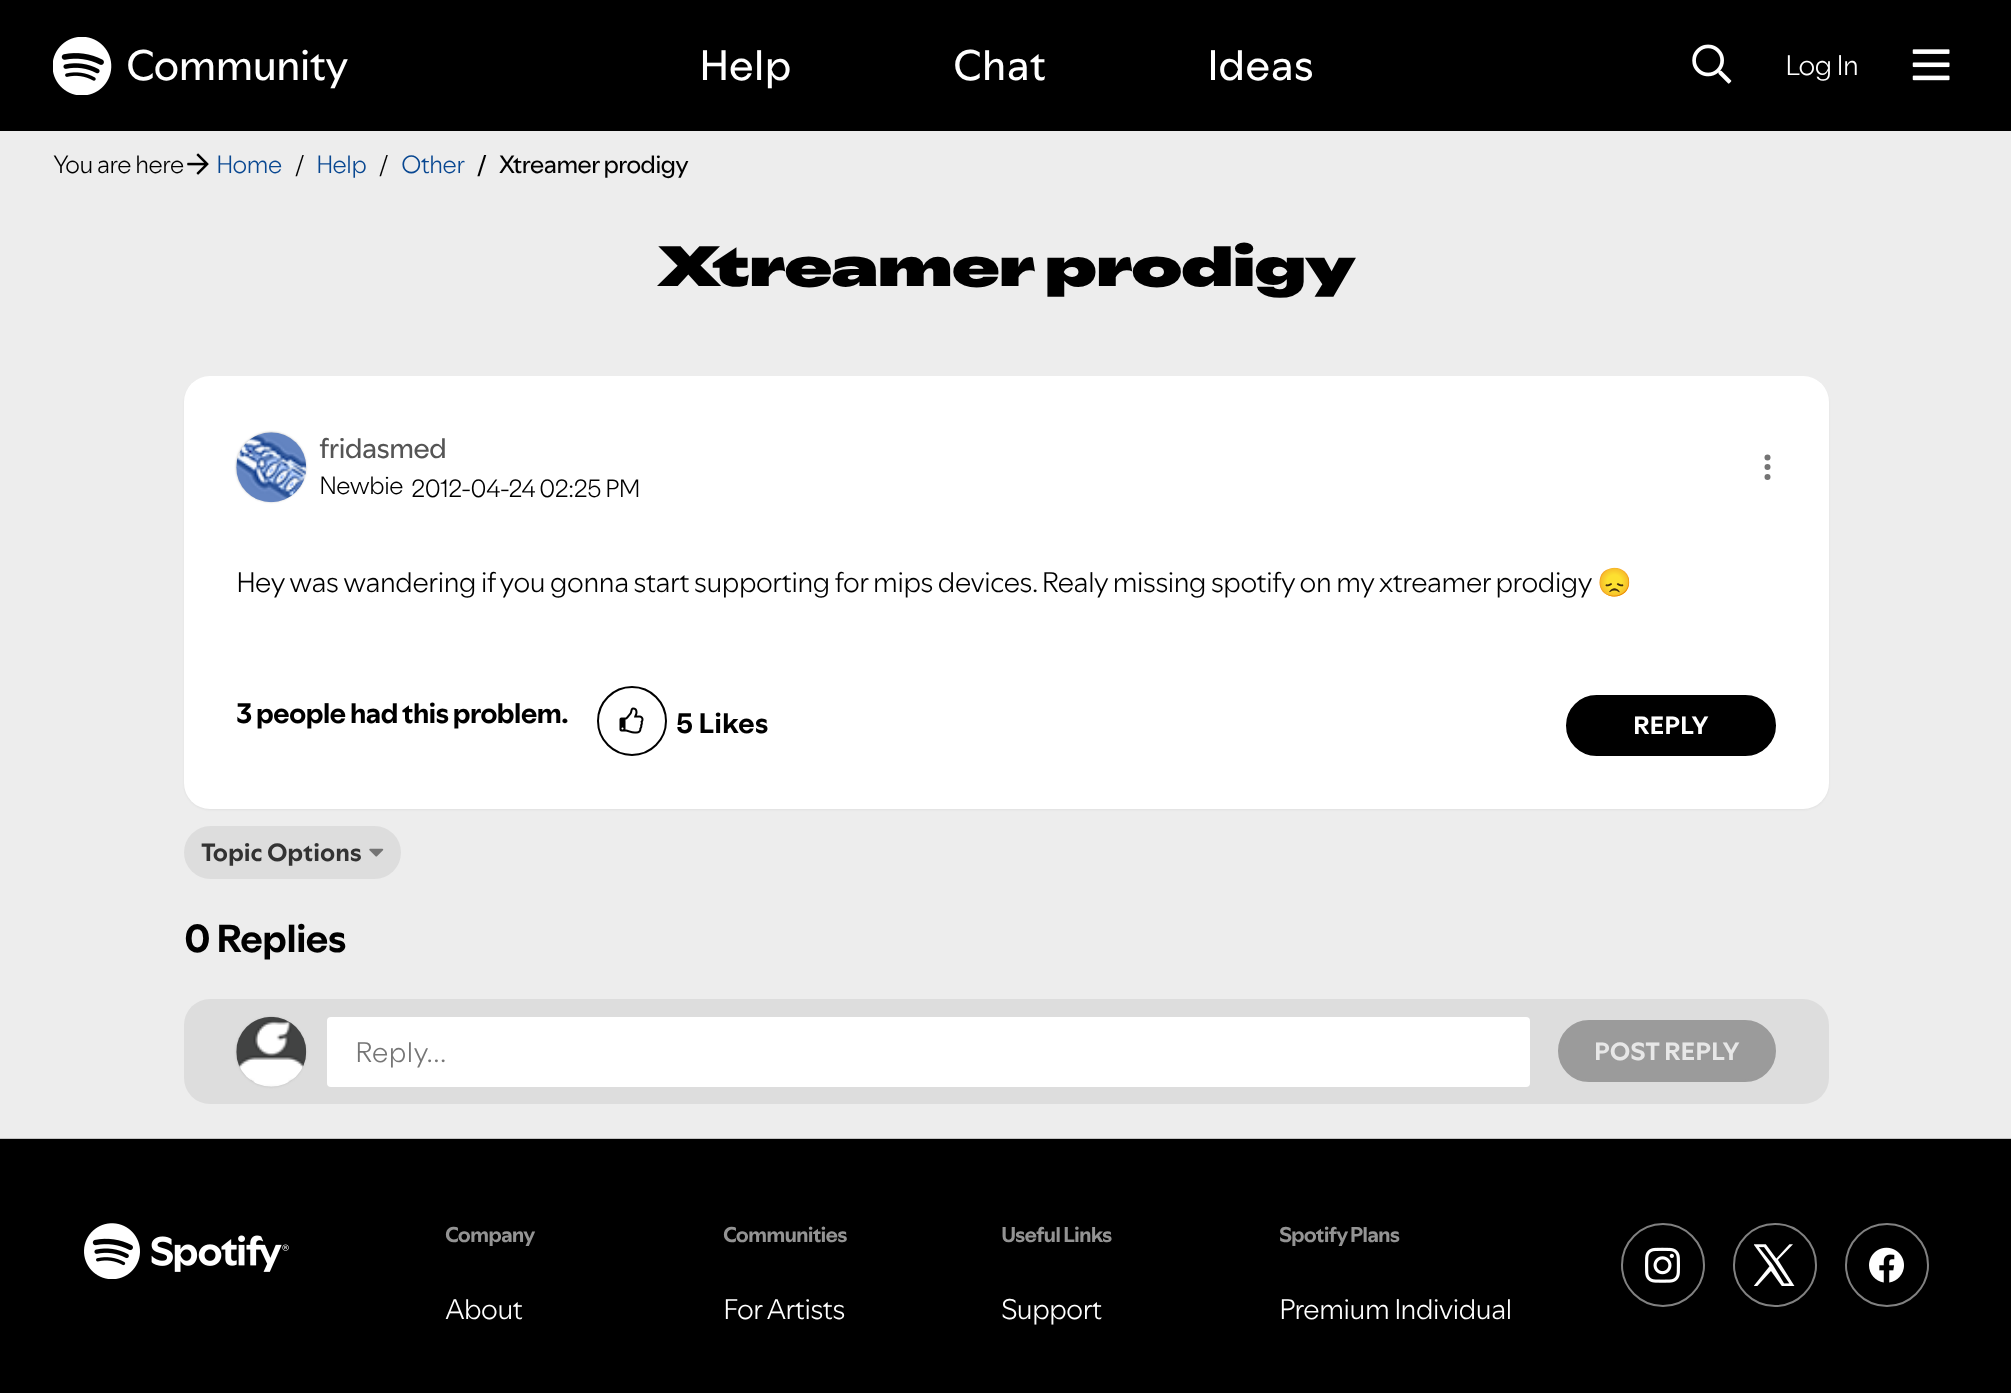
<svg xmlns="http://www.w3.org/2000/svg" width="2011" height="1393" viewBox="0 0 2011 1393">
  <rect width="100%" height="100%" fill="#ededed"/>
  <path d="M0 0h2011v131H0z" fill="#000"/>
  <image x="53" y="37" width="59" height="58" href="img/1.png"/>
  <image x="1692" y="44" width="40" height="40" href="img/2.png"/>
  <image x="1912" y="49" width="38" height="32" href="img/3.png"/>
  <image x="187" y="153" width="22" height="22" href="img/4.png"/>
  <rect x="184" y="378" width="1645" height="432" rx="26" fill="#0000000d" filter="blur(1px)"/>
  <rect x="184" y="376" width="1645" height="433" rx="26" fill="#fff"/>
  <rect x="236" y="432" width="70" height="70" rx="35" fill="#c4c4c4" filter="blur(1px)"/>
  <image x="236" y="432" width="71" height="71" href="img/5.png"/>
  <circle cx="1767.5" cy="457.5" r="3" fill="#747474"/>
  <circle cx="1767.5" cy="467" r="3" fill="#747474"/>
  <circle cx="1767.5" cy="477" r="3" fill="#747474"/>
  <circle cx="632" cy="721" r="34" fill="none" stroke="#000" stroke-width="2"/>
  <image x="619" y="707" width="25" height="27" href="img/6.png"/>
  <rect x="1567" y="696" width="208" height="59" rx="29.5" fill="#000" stroke="#000" stroke-width="2"/>
  <rect x="184" y="826" width="217" height="53" rx="26.5" fill="#ddd"/>
  <image x="369" y="848" width="15" height="9" href="img/7.png"/>
  <rect x="184" y="999" width="1645" height="105" rx="26" fill="#ddd"/>
  <rect x="236" y="1017" width="70" height="70" rx="35" fill="#c4c4c4" filter="blur(1px)"/>
  <image x="236" y="1016" width="71" height="71" href="img/8.png"/>
  <rect x="327" y="1017" width="1203" height="70" rx="4" fill="#fff"/>
  <rect x="1559" y="1021" width="216" height="60" rx="30" fill="#9b9b9b" stroke="#9b9b9b" stroke-width="2"/>
  <path d="M0 1138h2011v1H0z" fill="#c4c4c4"/>
  <path d="M0 1139h2011v254H0z" fill="#000"/>
  <image x="84" y="1223" width="205" height="56" href="img/9.png"/>
  <circle cx="1663" cy="1265" r="41" fill="none" stroke="#818181" stroke-width="2"/>
  <image x="1645" y="1247" width="35" height="36" href="img/10.png"/>
  <circle cx="1775" cy="1265" r="41" fill="none" stroke="#818181" stroke-width="2"/>
  <image x="1754" y="1244" width="41" height="42" href="img/11.png"/>
  <circle cx="1887" cy="1265" r="41" fill="none" stroke="#818181" stroke-width="2"/>
  <image x="1869" y="1247" width="35" height="36" href="img/12.png"/>
  <text x="126" y="80" font-family="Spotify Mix" font-size="42" letter-spacing="-0.88" fill="#fff">Community</text>
  <g font-family="Spotify Mix" font-size="42" fill="#fff">
    <text x="699" y="80">Help</text>
    <text x="953" y="80">Chat</text>
    <text x="1207" y="80">Ideas</text>
  </g>
  <text x="1785" y="75" font-family="Spotify Mix" font-size="28" font-weight="300" letter-spacing="-0.88" fill="#fff">Log In</text>
  <text x="53" y="173" font-family="Spotify Mix" font-size="24.5" font-weight="300" letter-spacing="-0.88" fill="#000">You are here</text>
  <text x="216" y="173" font-family="Spotify Mix" font-size="24.5" font-weight="300" letter-spacing="-0.88" fill="#084791">Home</text>
  <text x="295" y="173" font-family="Spotify Mix" font-size="24.5" font-weight="300" letter-spacing="-0.88" fill="#000">/</text>
  <text x="316" y="173" font-family="Spotify Mix" font-size="24.5" font-weight="300" letter-spacing="-0.88" fill="#084791">Help</text>
  <text x="379" y="173" font-family="Spotify Mix" font-size="24.5" font-weight="300" letter-spacing="-0.88" fill="#000">/</text>
  <text x="401" y="173" font-family="Spotify Mix" font-size="24.5" font-weight="300" letter-spacing="-0.88" fill="#084791">Other</text>
  <g font-family="Spotify Mix" font-size="24.5" letter-spacing="-0.88" fill="#000">
    <text x="477" y="173">/</text>
    <text x="499" y="173">Xtreamer prodigy</text>
  </g>
  <text x="658" y="286" font-family="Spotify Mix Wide" font-size="56" font-weight="900" letter-spacing="-0.88" fill="#000">Xtreamer prodigy</text>
  <text x="319" y="458" font-family="Spotify Mix" font-size="28" letter-spacing="-0.88" fill="#555">fridasmed</text>
  <g font-family="Spotify Mix" font-size="24.5" font-weight="300" letter-spacing="-0.88" fill="#000">
    <text x="319" y="494">Newbie</text>
    <text x="411" y="497">2012-04-24</text>
    <text x="539" y="497">02:25 PM</text>
  </g>
  <text x="236" y="592" font-family="Spotify Mix" font-size="28" font-weight="300" letter-spacing="-0.88" fill="#000">Hey was wandering if you gonna start supporting for mips devices. Realy missing spotify on my xtreamer prodigy</text>
  <text x="1597" y="592" font-family="Noto Color Emoji" font-size="28" letter-spacing="-0.88" fill="#000">😞</text>
  <text x="236" y="723" font-family="Spotify Mix" font-size="28" font-weight="bold" letter-spacing="-0.88" fill="#000">3 people had this problem.</text>
  <text x="676" y="733" font-family="Spotify Mix" font-size="28" font-weight="bold" fill="#000">5 Likes</text>
  <text x="1633" y="734" font-family="Spotify Mix" font-size="24.5" font-weight="bold" fill="#fff">REPLY</text>
  <text x="201" y="861" font-family="Spotify Mix" font-size="24.5" font-weight="bold" fill="#333">Topic Options</text>
  <text x="184" y="952" font-family="Spotify Mix" font-size="38.5" font-weight="bold" letter-spacing="-0.88" fill="#000">0 Replies</text>
  <text x="355" y="1062" font-family="Spotify Mix" font-size="28" font-weight="300" fill="#767676">Reply...</text>
  <text x="1594" y="1060" font-family="Spotify Mix" font-size="24.5" font-weight="bold" fill="#e7e7e7">POST REPLY</text>
  <text x="445" y="1242" font-family="Spotify Mix" font-size="21" font-weight="bold" letter-spacing="-0.88" fill="#939393">Company</text>
  <text x="445" y="1319" font-family="Spotify Mix" font-size="28" font-weight="300" letter-spacing="-0.88" fill="#fff">About</text>
  <text x="723" y="1242" font-family="Spotify Mix" font-size="21" font-weight="bold" letter-spacing="-0.88" fill="#939393">Communities</text>
  <text x="723" y="1319" font-family="Spotify Mix" font-size="28" font-weight="300" letter-spacing="-0.88" fill="#fff">For Artists</text>
  <text x="1001" y="1242" font-family="Spotify Mix" font-size="21" font-weight="bold" letter-spacing="-0.88" fill="#939393">Useful Links</text>
  <text x="1001" y="1319" font-family="Spotify Mix" font-size="28" font-weight="300" letter-spacing="-0.88" fill="#fff">Support</text>
  <text x="1279" y="1242" font-family="Spotify Mix" font-size="21" font-weight="bold" letter-spacing="-0.88" fill="#939393">Spotify Plans</text>
  <text x="1279" y="1319" font-family="Spotify Mix" font-size="28" font-weight="300" letter-spacing="-0.88" fill="#fff">Premium Individual</text>
</svg>
